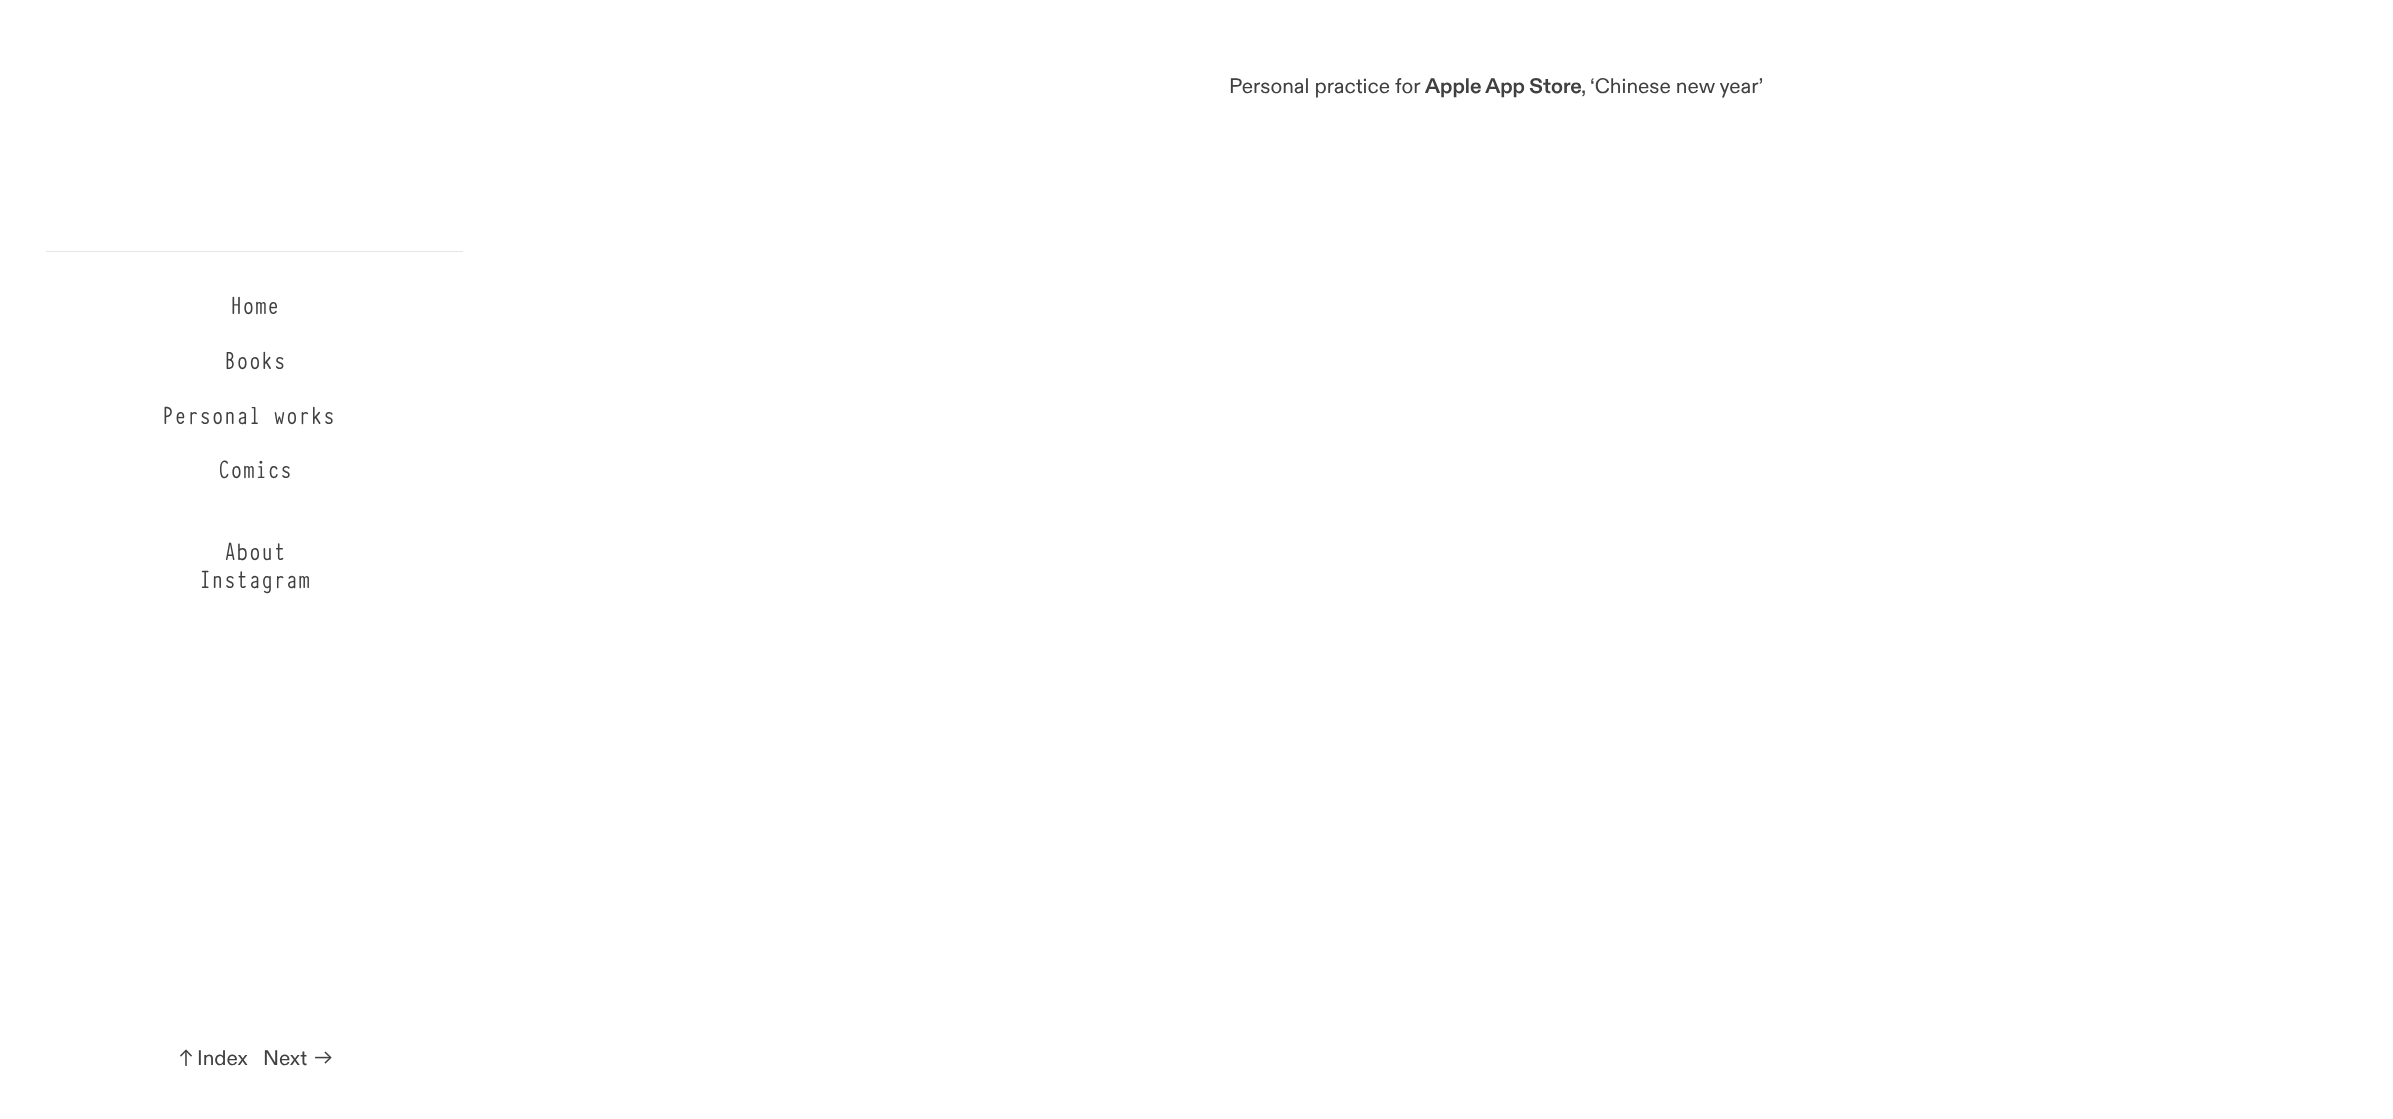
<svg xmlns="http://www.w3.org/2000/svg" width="2393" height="1119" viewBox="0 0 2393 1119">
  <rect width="100%" height="100%" fill="#fff"/>
  <path d="M46 251h417v1H46z" fill="#e5e5e5"/>
  <image x="180" y="1049" width="12" height="17" href="img/1.png"/>
  <image x="315" y="1051" width="17" height="13" href="img/2.png"/>
  <text x="1229" y="93" font-family="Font" font-size="21" fill="#404040">Personal practice for</text>
  <text x="1425" y="93" font-family="Font" font-size="21" font-weight="bold" fill="#404040">Apple App Store</text>
  <text x="1581" y="93" font-family="Font" font-size="21" fill="#404040">, ‘Chinese new year’</text>
  <g font-family="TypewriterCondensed" font-size="27.5" fill="#404040">
    <text x="230" y="314">Home</text>
    <text x="224" y="369">Books</text>
    <text x="162" y="424">Personal works</text>
    <text x="218" y="478">Comics</text>
    <text x="224" y="560">About</text>
    <text x="199" y="588">Instagram</text>
  </g>
  <g font-family="Font" font-size="21" fill="#404040">
    <text x="197" y="1065">Index</text>
    <text x="263" y="1065">Next</text>
  </g>
</svg>
